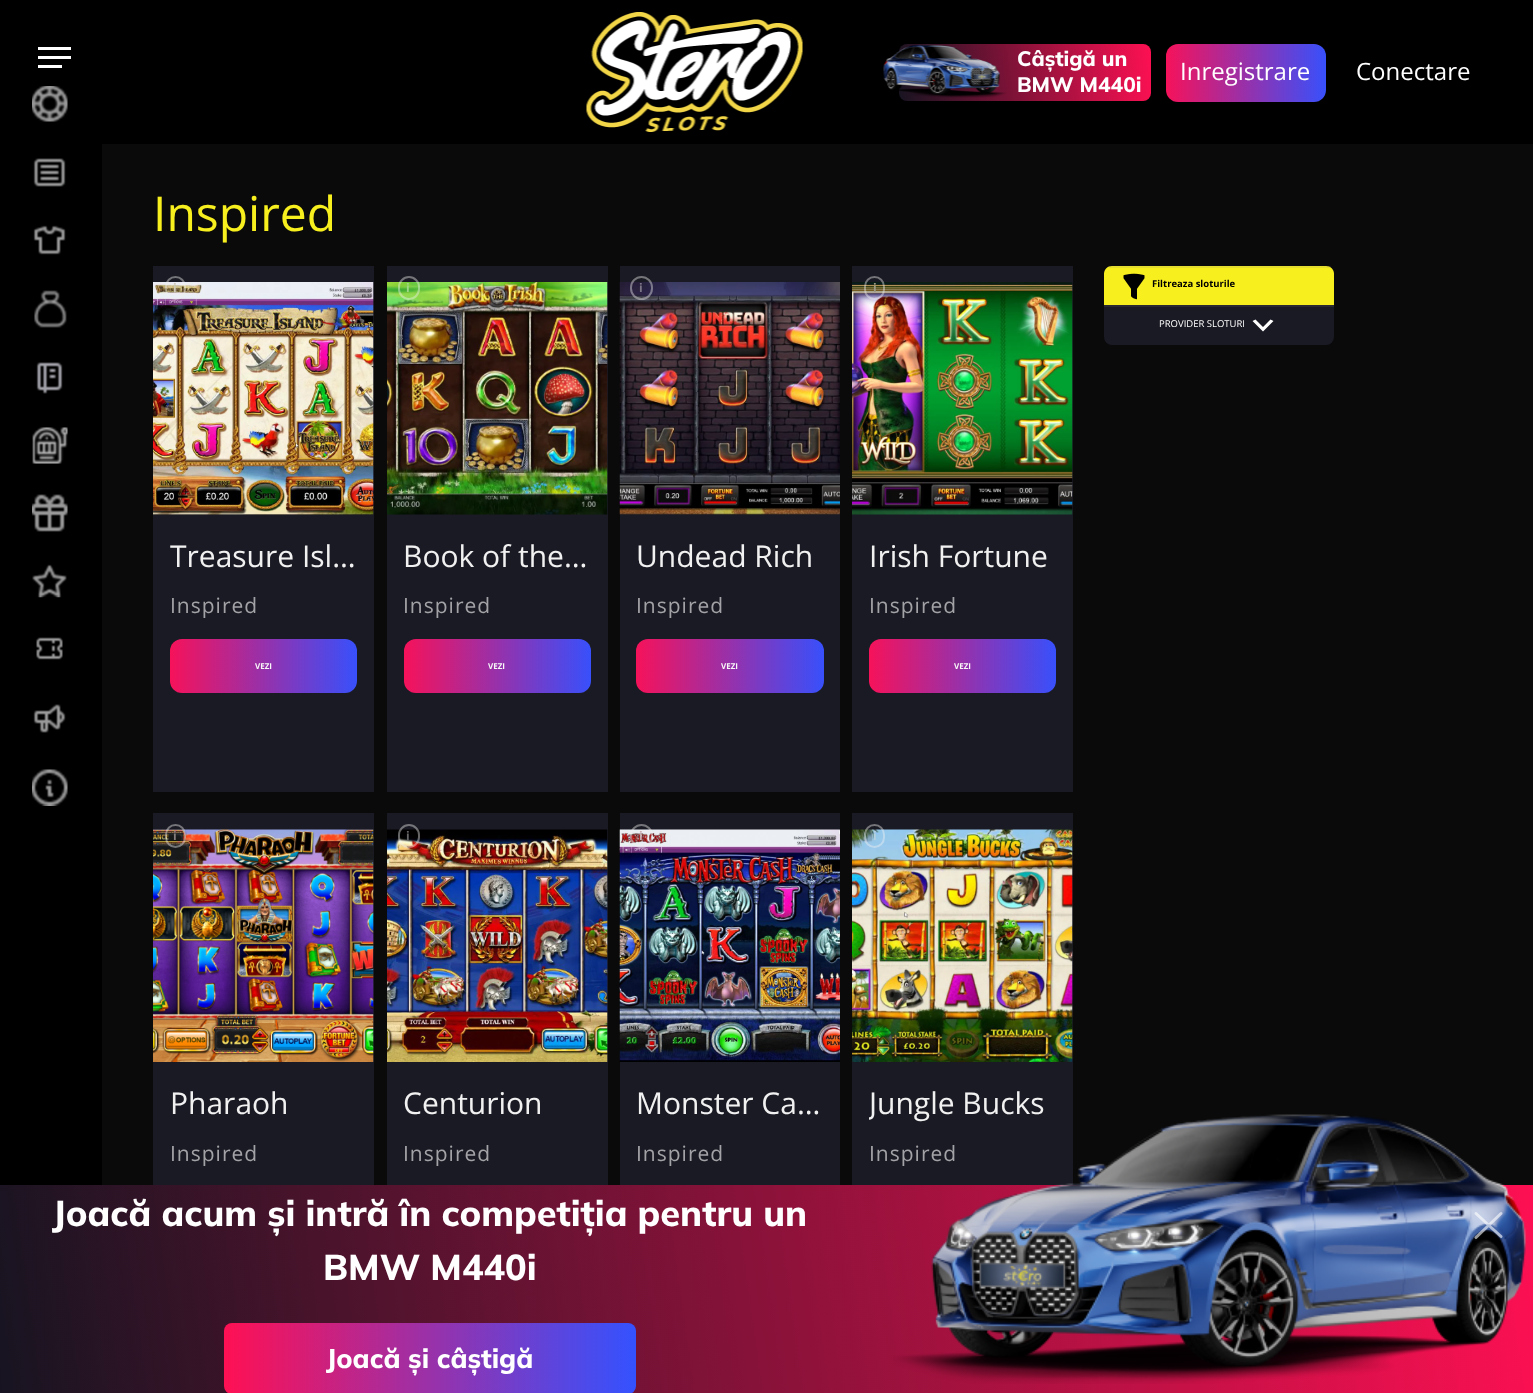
<svg xmlns="http://www.w3.org/2000/svg" width="1533" height="1393" viewBox="0 0 1533 1393">
  <defs>
    <linearGradient id="g1" gradientUnits="userSpaceOnUse" x1="893" y1="90" x2="1154" y2="54"><stop offset="0" stop-color="#141420"/><stop offset="1" stop-color="#ff1053"/></linearGradient>
    <linearGradient id="g2" gradientUnits="userSpaceOnUse" x1="1166" y1="73" x2="1326" y2="73"><stop offset="0" stop-color="#f6125a"/><stop offset="1" stop-color="#3850fb"/></linearGradient>
    <linearGradient id="g3" gradientUnits="userSpaceOnUse" x1="170" y1="666" x2="357" y2="666"><stop offset="0" stop-color="#f6125a"/><stop offset="1" stop-color="#3850fb"/></linearGradient>
    <linearGradient id="g4" gradientUnits="userSpaceOnUse" x1="404" y1="666" x2="591" y2="666"><stop offset="0" stop-color="#f6125a"/><stop offset="1" stop-color="#3850fb"/></linearGradient>
    <linearGradient id="g5" gradientUnits="userSpaceOnUse" x1="636" y1="666" x2="824" y2="666"><stop offset="0" stop-color="#f6125a"/><stop offset="1" stop-color="#3850fb"/></linearGradient>
    <linearGradient id="g6" gradientUnits="userSpaceOnUse" x1="869" y1="666" x2="1056" y2="666"><stop offset="0" stop-color="#f6125a"/><stop offset="1" stop-color="#3850fb"/></linearGradient>
    <linearGradient id="g7" gradientUnits="userSpaceOnUse" x1="-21" y1="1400" x2="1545" y2="1180"><stop offset="0" stop-color="#141420"/><stop offset="1" stop-color="#ff1053"/></linearGradient>
    <linearGradient id="g8" gradientUnits="userSpaceOnUse" x1="224" y1="1358" x2="636" y2="1358"><stop offset="0" stop-color="#ff1053"/><stop offset="1" stop-color="#3452ff"/></linearGradient>
    <clipPath id="clip1"><path d="M869 1086h187v36H869z"/></clipPath>
  </defs>
  <rect width="100%" height="100%" fill="#0a0a0a"/>
  <path d="M0 0h102v1185H0z" fill="#000"/>
  <path d="M38 47h33v3H38z" fill="#fff"/>
  <path d="M38 56h33v3H38z" fill="#fff"/>
  <path d="M38 65h24v3H38z" fill="#fff"/>
  <image x="32" y="86" width="36" height="36" href="img/1.png"/>
  <image x="33" y="158" width="33" height="29" href="img/2.png"/>
  <image x="33" y="225" width="33" height="30" href="img/3.png"/>
  <image x="34" y="290" width="33" height="38" href="img/4.png"/>
  <image x="36" y="362" width="27" height="32" href="img/5.png"/>
  <image x="32" y="427" width="36" height="37" href="img/6.png"/>
  <image x="32" y="494" width="36" height="38" href="img/7.png"/>
  <image x="32" y="564" width="35" height="34" href="img/8.png"/>
  <image x="36" y="637" width="27" height="23" href="img/9.png"/>
  <image x="33" y="704" width="33" height="29" href="img/10.png"/>
  <image x="32" y="769" width="36" height="37" href="img/11.png"/>
  <path d="M102 0h1431v144H102z" fill="#000"/>
  <image x="586" y="12" width="217" height="120" href="img/12.png"/>
  <rect x="899" y="44" width="252" height="57" rx="8" fill="url(#g1)"/>
  <image x="883" y="44" width="123" height="54" href="img/13.png"/>
  <rect x="1166" y="44" width="160" height="58" rx="12" fill="url(#g2)"/>
  <path d="M153 266h221v526H153z" fill="#1a1a24"/>
  <image x="153" y="282" width="221" height="233" href="img/14.png"/>
  <rect x="166" y="277" width="19" height="22" rx="9.5" fill="none" stroke="#f1f1f16b" stroke-width="2"/>
  <rect x="170" y="639" width="187" height="54" rx="12" fill="url(#g3)"/>
  <path d="M387 266h221v526H387z" fill="#1a1a24"/>
  <image x="387" y="282" width="221" height="233" href="img/15.png"/>
  <rect x="399" y="277" width="20" height="22" rx="10" fill="none" stroke="#f1f1f16b" stroke-width="2"/>
  <rect x="404" y="639" width="187" height="54" rx="12" fill="url(#g4)"/>
  <path d="M620 266h220v526H620z" fill="#1a1a24"/>
  <image x="619" y="282" width="221" height="233" href="img/16.png"/>
  <rect x="631" y="277" width="21" height="22" rx="10.5" fill="none" stroke="#f1f1f16b" stroke-width="2"/>
  <rect x="636" y="639" width="188" height="54" rx="12" fill="url(#g5)"/>
  <path d="M852 266h221v526H852z" fill="#1a1a24"/>
  <image x="852" y="282" width="221" height="233" href="img/17.png"/>
  <rect x="865" y="277" width="19" height="22" rx="9.5" fill="none" stroke="#f1f1f16b" stroke-width="2"/>
  <rect x="869" y="639" width="187" height="54" rx="12" fill="url(#g6)"/>
  <path d="M153 813h221v372H153z" fill="#1a1a24"/>
  <image x="153" y="829" width="221" height="233" href="img/18.png"/>
  <rect x="166" y="825" width="19" height="22" rx="9.5" fill="none" stroke="#f1f1f16b" stroke-width="2"/>
  <path d="M387 813h221v372H387z" fill="#1a1a24"/>
  <image x="387" y="829" width="221" height="233" href="img/19.png"/>
  <rect x="399" y="825" width="20" height="22" rx="10" fill="none" stroke="#f1f1f16b" stroke-width="2"/>
  <path d="M620 813h220v372H620z" fill="#1a1a24"/>
  <image x="619" y="829" width="221" height="233" href="img/20.png"/>
  <rect x="631" y="825" width="21" height="22" rx="10.5" fill="none" stroke="#f1f1f16b" stroke-width="2"/>
  <path d="M852 813h221v372H852z" fill="#1a1a24"/>
  <image x="852" y="829" width="221" height="233" href="img/21.png"/>
  <rect x="865" y="825" width="19" height="22" rx="9.5" fill="none" stroke="#f1f1f16b" stroke-width="2"/>
  <rect x="1104" y="266" width="230" height="79" rx="8" fill="#1a1a24"/>
  <path d="M1112 266H1326C1330.5 266 1334 269.5 1334 274V305H1104V274C1104 269.5 1107.5 266 1112 266Z" fill="#f8ef1e"/>
  <path d="M1109 266h222v2H1109z" fill="#80808026"/>
  <image x="1123" y="273" width="22" height="27" href="img/22.png"/>
  <path d="M1104 305h230v2H1104z" fill="#292932"/>
  <path d="M1255.5 319.5L1263 327L1270.5 319.5L1273.5 321L1263 331.5L1252.5 321Z" fill="#fff"/>
  <path d="M0 1185h1533v208H0z" fill="url(#g7)"/>
  <rect x="224" y="1323" width="412" height="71" rx="8" fill="url(#g8)"/>
  <g font-family="Mulish" font-size="21" font-weight="800" fill="#fff">
    <text x="1017" y="66">Câștigă un</text>
    <text x="1017" y="92">BMW M440i</text>
  </g>
  <g font-family="Open Sans" font-size="24" fill="#fff">
    <text x="1180" y="80">Inregistrare</text>
    <text x="1356" y="80">Conectare</text>
  </g>
  <text x="153" y="231" font-family="Open Sans" font-size="48" fill="#f8ef1e">Inspired</text>
  <text x="173" y="292" font-family="Open Sans" font-size="12" font-weight="bold" fill="#cec8b7">i</text>
  <text x="170" y="567" font-family="Open Sans" font-size="30" fill="#f1f1f1">Treasure Isl…</text>
  <text x="170" y="613" font-family="Open Sans" font-size="21" letter-spacing="1" fill="#a3a3a7">Inspired</text>
  <text x="255" y="669" font-family="Open Sans" font-size="8" font-weight="bold" fill="#f8f8f8">VEZI</text>
  <text x="406" y="292" font-family="Open Sans" font-size="12" font-weight="bold" fill="#a1d788">i</text>
  <text x="403" y="567" font-family="Open Sans" font-size="30" fill="#f1f1f1">Book of the…</text>
  <text x="403" y="613" font-family="Open Sans" font-size="21" letter-spacing="1" fill="#a3a3a7">Inspired</text>
  <text x="488" y="669" font-family="Open Sans" font-size="8" font-weight="bold" fill="#f8f8f8">VEZI</text>
  <text x="639" y="292" font-family="Open Sans" font-size="12" font-weight="bold" fill="#7d7889">i</text>
  <text x="636" y="567" font-family="Open Sans" font-size="30" fill="#f1f1f1">Undead Rich</text>
  <text x="636" y="613" font-family="Open Sans" font-size="21" letter-spacing="1" fill="#a3a3a7">Inspired</text>
  <text x="721" y="669" font-family="Open Sans" font-size="8" font-weight="bold" fill="#f8f8f8">VEZI</text>
  <text x="873" y="292" font-family="Open Sans" font-size="12" font-weight="bold" fill="#9c9a85">i</text>
  <text x="869" y="567" font-family="Open Sans" font-size="30" fill="#f1f1f1">Irish Fortune</text>
  <text x="869" y="613" font-family="Open Sans" font-size="21" letter-spacing="1" fill="#a3a3a7">Inspired</text>
  <text x="954" y="669" font-family="Open Sans" font-size="8" font-weight="bold" fill="#f8f8f8">VEZI</text>
  <text x="173" y="840" font-family="Open Sans" font-size="12" font-weight="bold" fill="#867e7c">i</text>
  <text x="170" y="1114" font-family="Open Sans" font-size="30" fill="#f1f1f1">Pharaoh</text>
  <text x="170" y="1161" font-family="Open Sans" font-size="21" letter-spacing="1" fill="#a3a3a7">Inspired</text>
  <text x="406" y="840" font-family="Open Sans" font-size="12" font-weight="bold" fill="#676768">i</text>
  <text x="403" y="1114" font-family="Open Sans" font-size="30" fill="#f1f1f1">Centurion</text>
  <text x="403" y="1161" font-family="Open Sans" font-size="21" letter-spacing="1" fill="#a3a3a7">Inspired</text>
  <text x="639" y="840" font-family="Open Sans" font-size="12" font-weight="bold" fill="#c8aeb0">i</text>
  <text x="636" y="1114" font-family="Open Sans" font-size="30" fill="#f1f1f1">Monster Ca…</text>
  <text x="636" y="1161" font-family="Open Sans" font-size="21" letter-spacing="1" fill="#a3a3a7">Inspired</text>
  <text x="873" y="840" font-family="Open Sans" font-size="12" font-weight="bold" fill="#b5d0df">i</text>
  <g clip-path="url(#clip1)">
    <text x="869" y="1114" font-family="Open Sans" font-size="30" fill="#f1f1f1">Jungle Bucks</text>
  </g>
  <text x="869" y="1161" font-family="Open Sans" font-size="21" letter-spacing="1" fill="#a3a3a7">Inspired</text>
  <text x="1152" y="287" font-family="Open Sans" font-size="9.5" font-weight="bold" fill="#000">Filtreaza sloturile</text>
  <text x="1159" y="327" font-family="Open Sans" font-size="9.5" fill="#fff">PROVIDER SLOTURI</text>
  <g font-family="Mulish" font-size="36" font-weight="800" fill="#fff">
    <text x="52" y="1226">Joacă acum și intră în competiția pentru un</text>
    <text x="323" y="1280">BMW M440i</text>
  </g>
  <text x="326" y="1368" font-family="Mulish" font-size="27" font-weight="800" fill="#fff">Joacă și câștigă</text>
  <image x="893" y="1114" width="633" height="270" href="img/23.png"/>
  <path d="M1476 1213.5L1501 1236.5M1476 1237.5L1501 1213.5" fill="none" stroke="#ffffff99" stroke-width="3" stroke-linecap="round" stroke-linejoin="round"/>
</svg>
